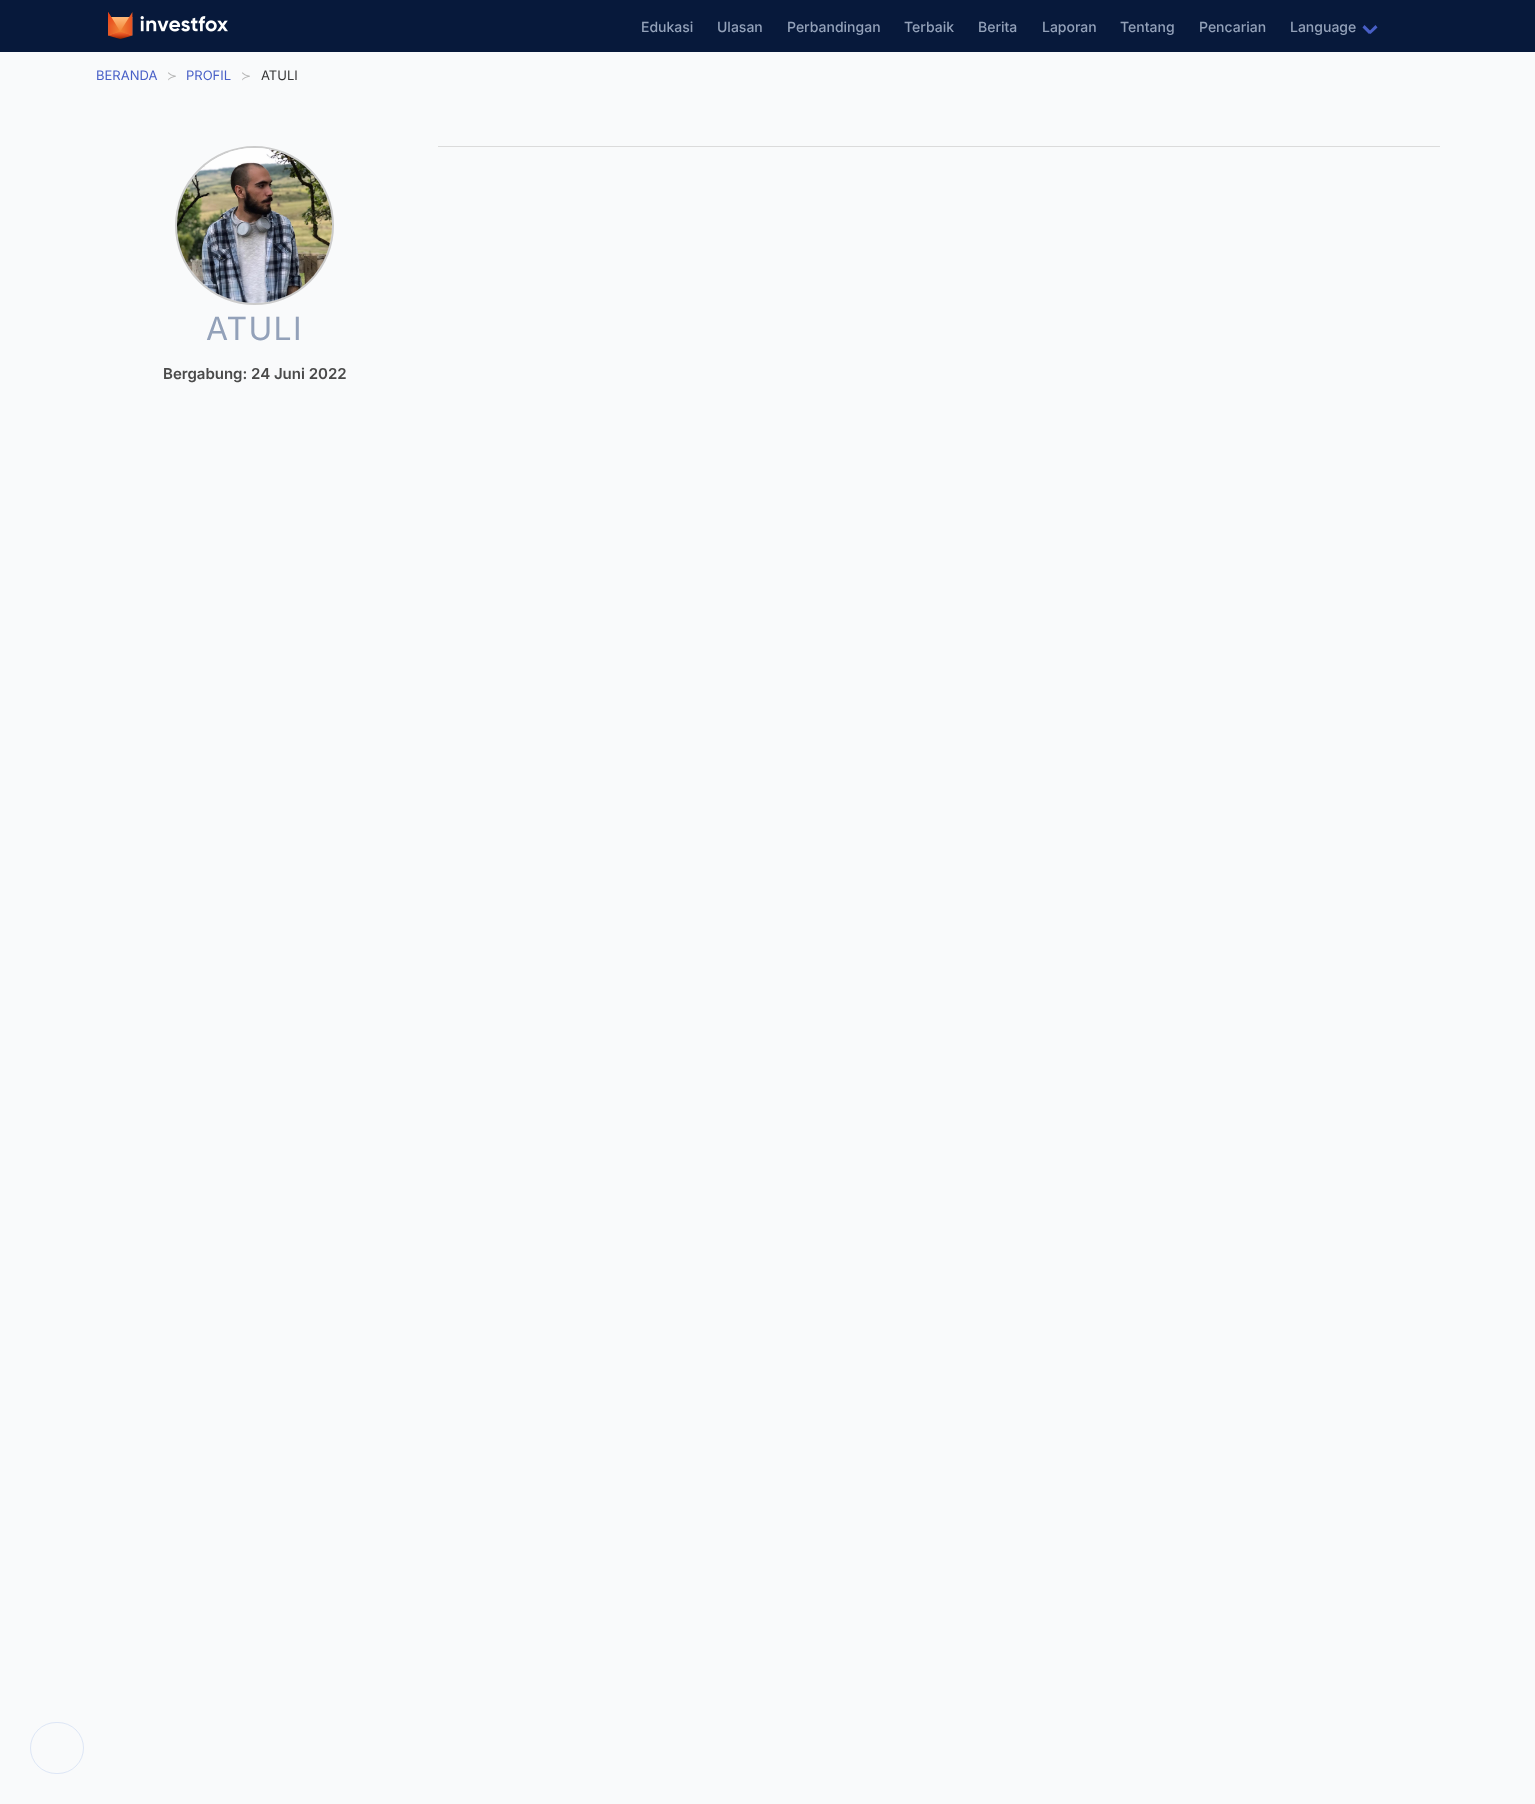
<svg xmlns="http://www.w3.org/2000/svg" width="1535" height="1804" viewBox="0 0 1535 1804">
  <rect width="100%" height="100%" fill="#f9fafb"/>
  <path d="M0 0h1535v52H0z" fill="#07193b"/>
  <image x="108" y="12" width="120" height="28" href="img/1.png"/>
  <path d="M1368.5 32L1375.5 25L1377.5 27.5L1370.5 34Z" fill="#485fc7"/>
  <path d="M1362.5 27.5L1364.5 25L1371.5 32L1369 34Z" fill="#485fc7"/>
  <path d="M438 146h1002v1H438z" fill="#dbdbdb"/>
  <circle cx="254.5" cy="225.5" r="78.5" fill="none" stroke="#ccc" stroke-width="2"/>
  <image x="177" y="148" width="155" height="155" href="img/2.png"/>
  <rect x="30.5" y="1722.5" width="53" height="51" rx="25.5" fill="none" stroke="#dde6f6"/>
  <g font-family="Inter" font-size="14" font-weight="500" fill="#93a1b9">
    <text x="641" y="32">Edukasi</text>
    <text x="717" y="32">Ulasan</text>
    <text x="787" y="32">Perbandingan</text>
    <text x="904" y="32">Terbaik</text>
    <text x="978" y="32">Berita</text>
    <text x="1042" y="32">Laporan</text>
    <text x="1120" y="32">Tentang</text>
    <text x="1199" y="32">Pencarian</text>
    <text x="1290" y="32">Language</text>
  </g>
  <text x="96" y="80" font-family="Inter" font-size="13" fill="#485fc7">BERANDA</text>
  <text x="167" y="80" font-family="DejaVu Sans" font-size="12" fill="#b5b5b5">≻</text>
  <text x="186" y="80" font-family="Inter" font-size="13" fill="#485fc7">PROFIL</text>
  <text x="241" y="80" font-family="DejaVu Sans" font-size="12" fill="#b5b5b5">≻</text>
  <text x="261" y="80" font-family="Inter" font-size="13" fill="#363636">ATULI</text>
  <text x="206" y="340" font-family="Inter" font-size="32" letter-spacing="1.25" fill="#93a1b9">ATULI</text>
  <text x="163" y="379" font-family="Inter" font-size="15" font-weight="600" fill="#4a4a4a">Bergabung: 24 Juni 2022</text>
</svg>
